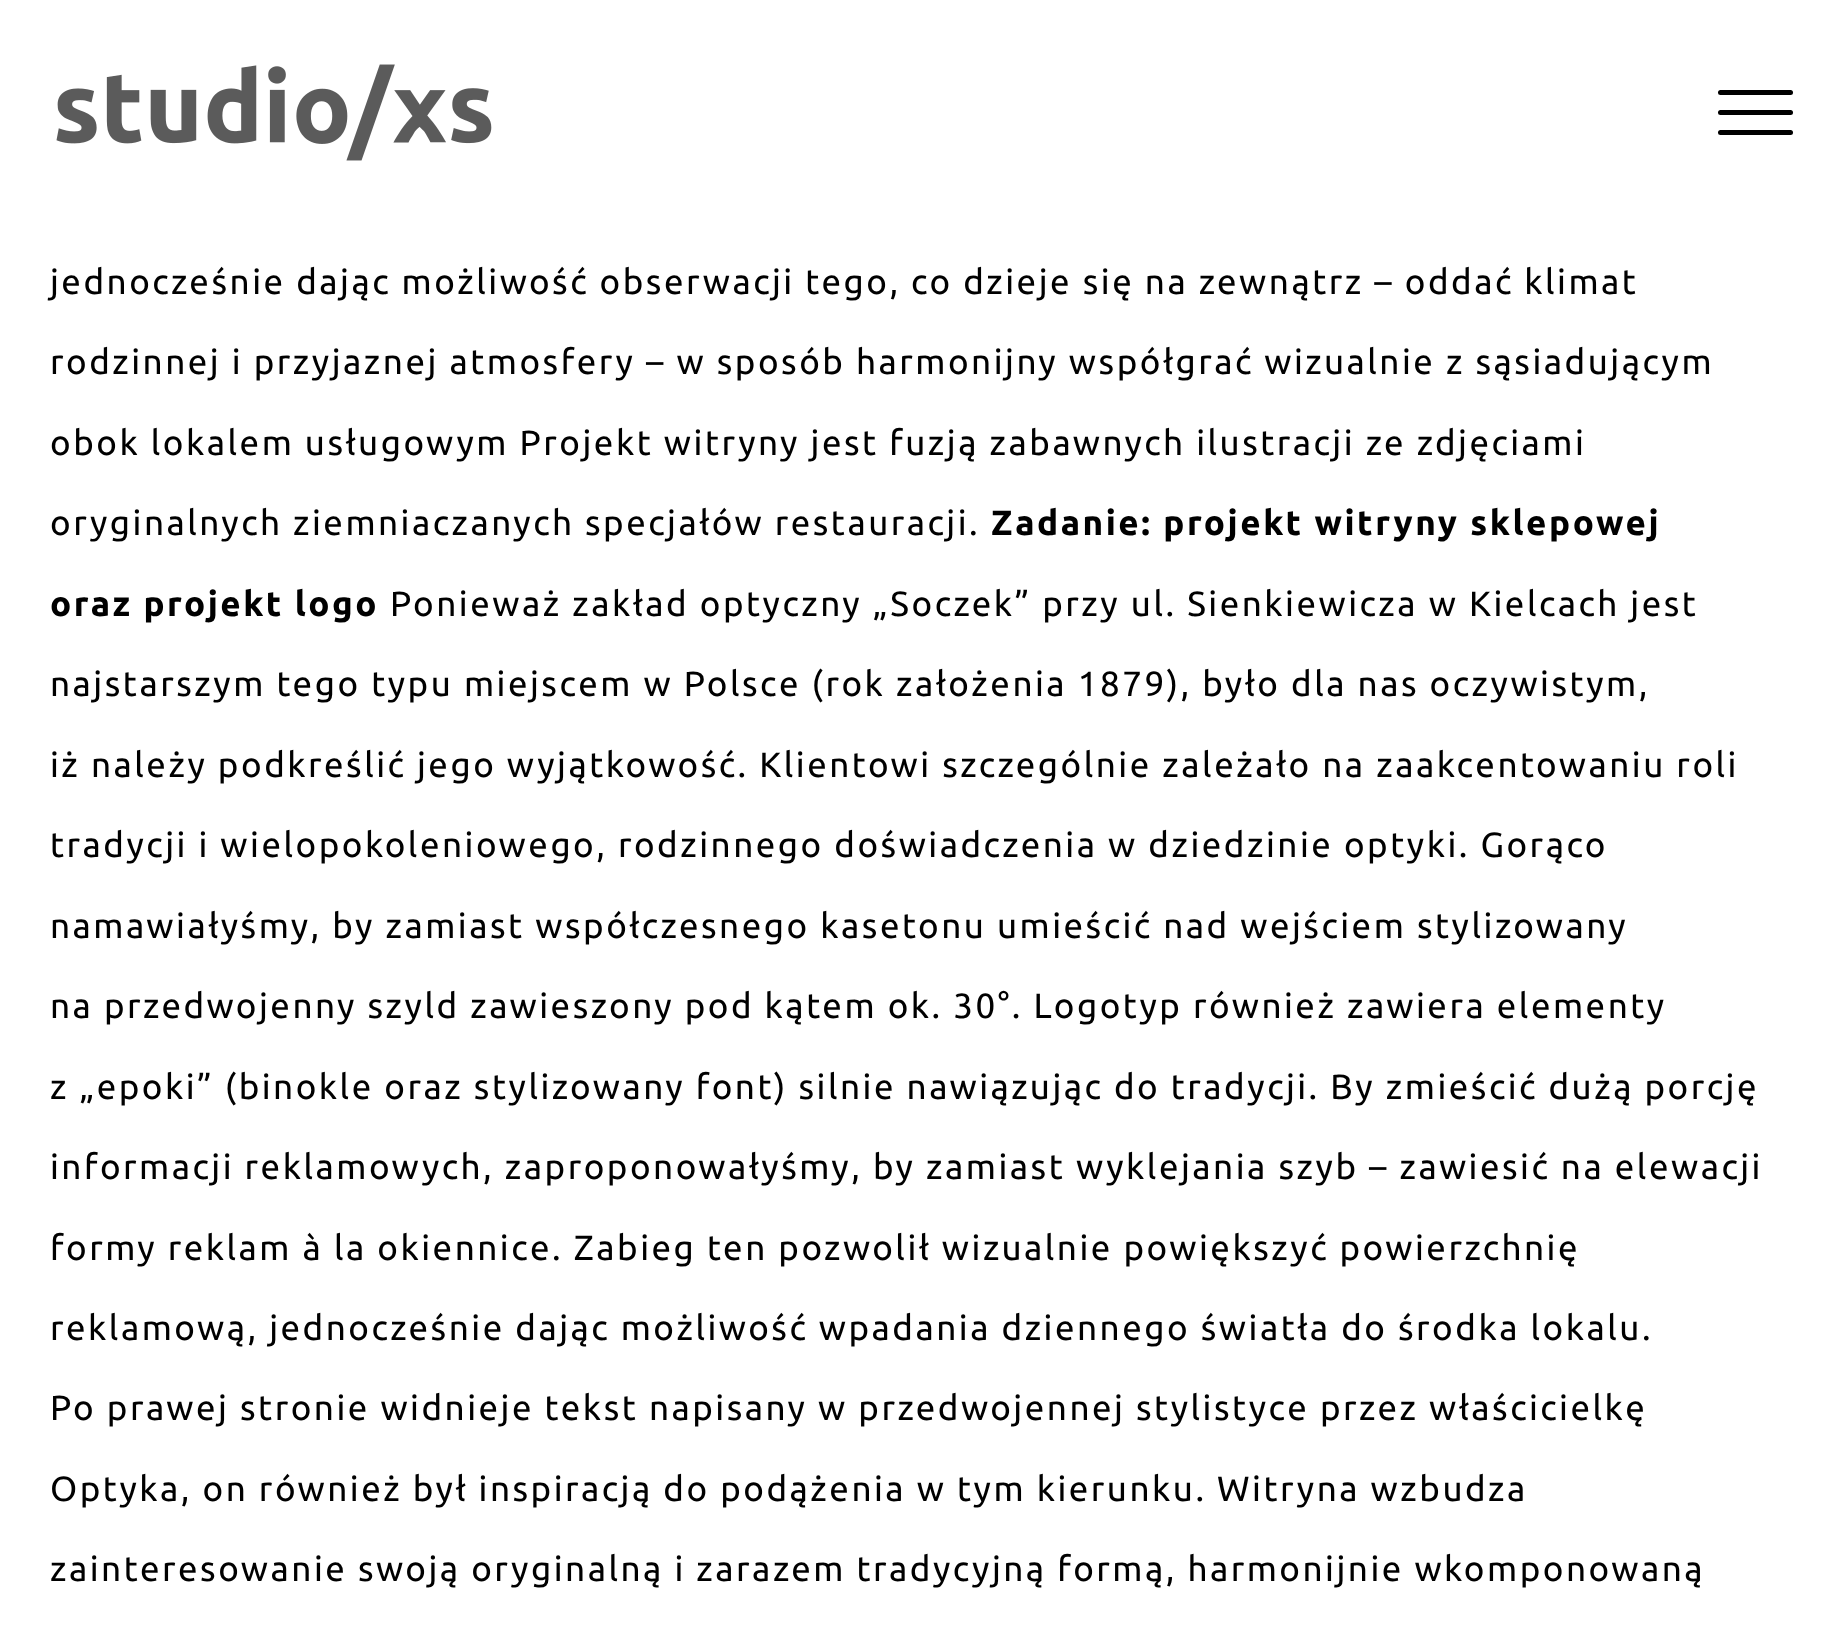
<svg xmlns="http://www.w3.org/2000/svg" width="1842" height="1644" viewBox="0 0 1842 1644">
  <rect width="100%" height="100%" fill="#fff"/>
  <image x="56" y="64" width="436" height="97" href="img/1.png"/>
  <rect x="1718" y="130" width="75" height="5" rx="2.5" fill="#000"/>
  <rect x="1718" y="90" width="75" height="5" rx="2.5" fill="#000"/>
  <rect x="1718" y="110" width="75" height="5" rx="2.5" fill="#000"/>
  <g font-family="Ubuntu" font-size="35" letter-spacing="2.5" fill="#000">
    <text x="50" y="294">jednocześnie dając możliwość obserwacji tego, co dzieje się na zewnątrz – oddać klimat</text>
    <text x="50" y="374">rodzinnej i przyjaznej atmosfery – w sposób harmonijny współgrać wizualnie z sąsiadującym</text>
    <text x="50" y="455">obok lokalem usługowym Projekt witryny jest fuzją zabawnych ilustracji ze zdjęciami</text>
    <text x="50" y="535">oryginalnych ziemniaczanych specjałów restauracji.</text>
  </g>
  <g font-family="Ubuntu" font-size="35" font-weight="bold" letter-spacing="2.5" fill="#000">
    <text x="991" y="535">Zadanie: projekt witryny sklepowej</text>
    <text x="50" y="616">oraz projekt logo</text>
  </g>
  <g font-family="Ubuntu" font-size="35" letter-spacing="2.5" fill="#000">
    <text x="390" y="616">Ponieważ zakład optyczny „Soczek” przy ul. Sienkiewicza w Kielcach jest</text>
    <text x="50" y="696">najstarszym tego typu miejscem w Polsce (rok założenia 1879), było dla nas oczywistym,</text>
    <text x="50" y="777">iż należy podkreślić jego wyjątkowość. Klientowi szczególnie zależało na zaakcentowaniu roli</text>
    <text x="50" y="857">tradycji i wielopokoleniowego, rodzinnego doświadczenia w dziedzinie optyki. Gorąco</text>
    <text x="50" y="938">namawiałyśmy, by zamiast współczesnego kasetonu umieścić nad wejściem stylizowany</text>
    <text x="50" y="1018">na przedwojenny szyld zawieszony pod kątem ok. 30°. Logotyp również zawiera elementy</text>
    <text x="50" y="1099">z „epoki” (binokle oraz stylizowany font) silnie nawiązując do tradycji. By zmieścić dużą porcję</text>
    <text x="50" y="1179">informacji reklamowych, zaproponowałyśmy, by zamiast wyklejania szyb – zawiesić na elewacji</text>
    <text x="50" y="1260">formy reklam à la okiennice. Zabieg ten pozwolił wizualnie powiększyć powierzchnię</text>
    <text x="50" y="1340">reklamową, jednocześnie dając możliwość wpadania dziennego światła do środka lokalu.</text>
    <text x="50" y="1420">Po prawej stronie widnieje tekst napisany w przedwojennej stylistyce przez właścicielkę</text>
    <text x="50" y="1501">Optyka, on również był inspiracją do podążenia w tym kierunku. Witryna wzbudza</text>
    <text x="50" y="1581">zainteresowanie swoją oryginalną i zarazem tradycyjną formą, harmonijnie wkomponowaną</text>
  </g>
</svg>
